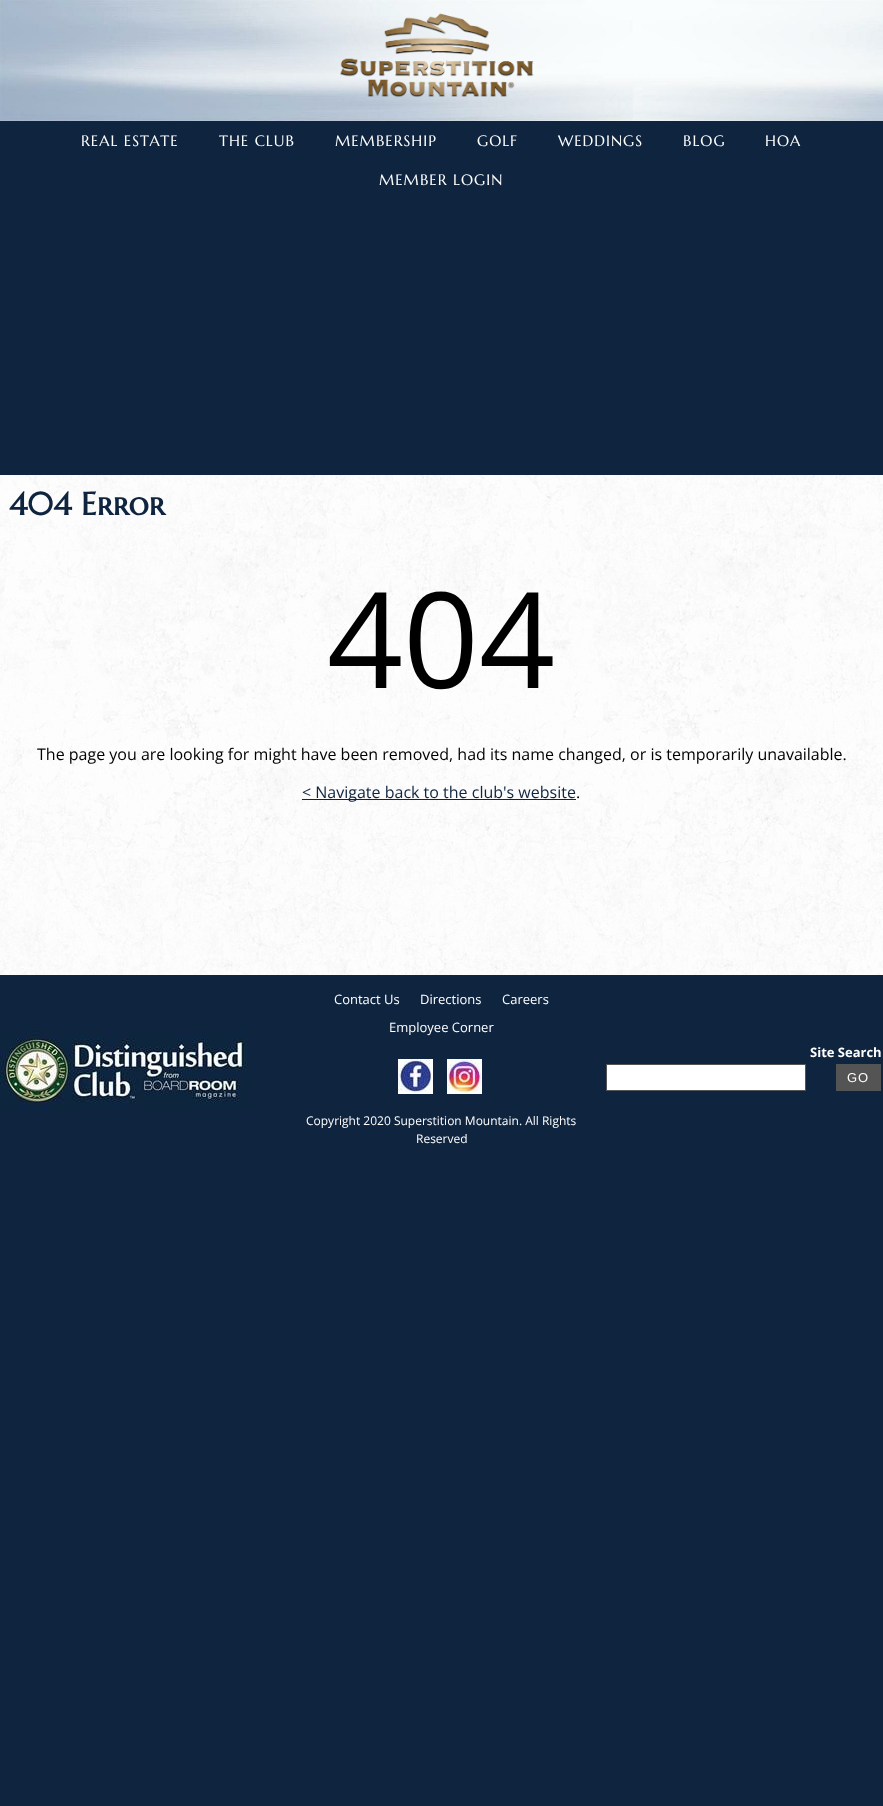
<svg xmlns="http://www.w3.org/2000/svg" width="883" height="1806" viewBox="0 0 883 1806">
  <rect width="100%" height="100%" fill="#0f243f"/>
  <image x="0" y="0" width="883" height="121" href="img/1.png"/>
  <image x="340" y="13" width="194" height="84" href="img/2.png"/>
  <image x="0" y="475" width="883" height="500" href="img/3.png"/>
  <path d="M302 799h274v1H302z" fill="#0f243f"/>
  <image x="0" y="1031" width="250" height="78" href="img/4.png"/>
  <image x="398" y="1059" width="35" height="35" href="img/5.png"/>
  <image x="447" y="1059" width="35" height="35" href="img/6.png"/>
  <path d="M606.5 1064.5h199v26H606.5z" fill="#fff" stroke="#545454"/>
  <path d="M836 1064h45v27H836z" fill="#545454"/>
  <g font-family="Marcellus SC" font-size="15" letter-spacing="1" fill="#fff">
    <text x="81" y="146">REAL ESTATE</text>
    <text x="219" y="146">THE CLUB</text>
    <text x="335" y="146">MEMBERSHIP</text>
    <text x="477" y="146">GOLF</text>
    <text x="558" y="146">WEDDINGS</text>
    <text x="683" y="146">BLOG</text>
    <text x="765" y="146">HOA</text>
    <text x="379" y="185">MEMBER LOGIN</text>
  </g>
  <text x="9" y="515" font-family="Marcellus SC" font-size="32" font-weight="bold" fill="#0f243f">404 Error</text>
  <text x="327" y="688" font-family="Open Sans" font-size="133" fill="#000">404</text>
  <text x="37" y="760" font-family="Open Sans" font-size="16" fill="#000">The page you are looking for might have been removed, had its name changed, or is temporarily unavailable.</text>
  <text x="302" y="798" font-family="Open Sans" font-size="16" fill="#0f243f">&lt; Navigate back to the club's website</text>
  <text x="576" y="798" font-family="Open Sans" font-size="16" fill="#000">.</text>
  <g font-family="Open Sans" font-size="13" fill="#fff">
    <text x="334" y="1004">Contact Us</text>
    <text x="420" y="1004">Directions</text>
    <text x="502" y="1004">Careers</text>
    <text x="389" y="1032">Employee Corner</text>
  </g>
  <g font-family="Open Sans" font-size="12" fill="#fff">
    <text x="306" y="1125">Copyright 2020 Superstition Mountain. All Rights</text>
    <text x="416" y="1143">Reserved</text>
  </g>
  <text x="810" y="1057" font-family="Open Sans" font-size="13" font-weight="bold" fill="#fff">Site Search</text>
  <text x="847" y="1082" font-family="Liberation Sans" font-size="13" letter-spacing="1" fill="#fff">GO</text>
</svg>
